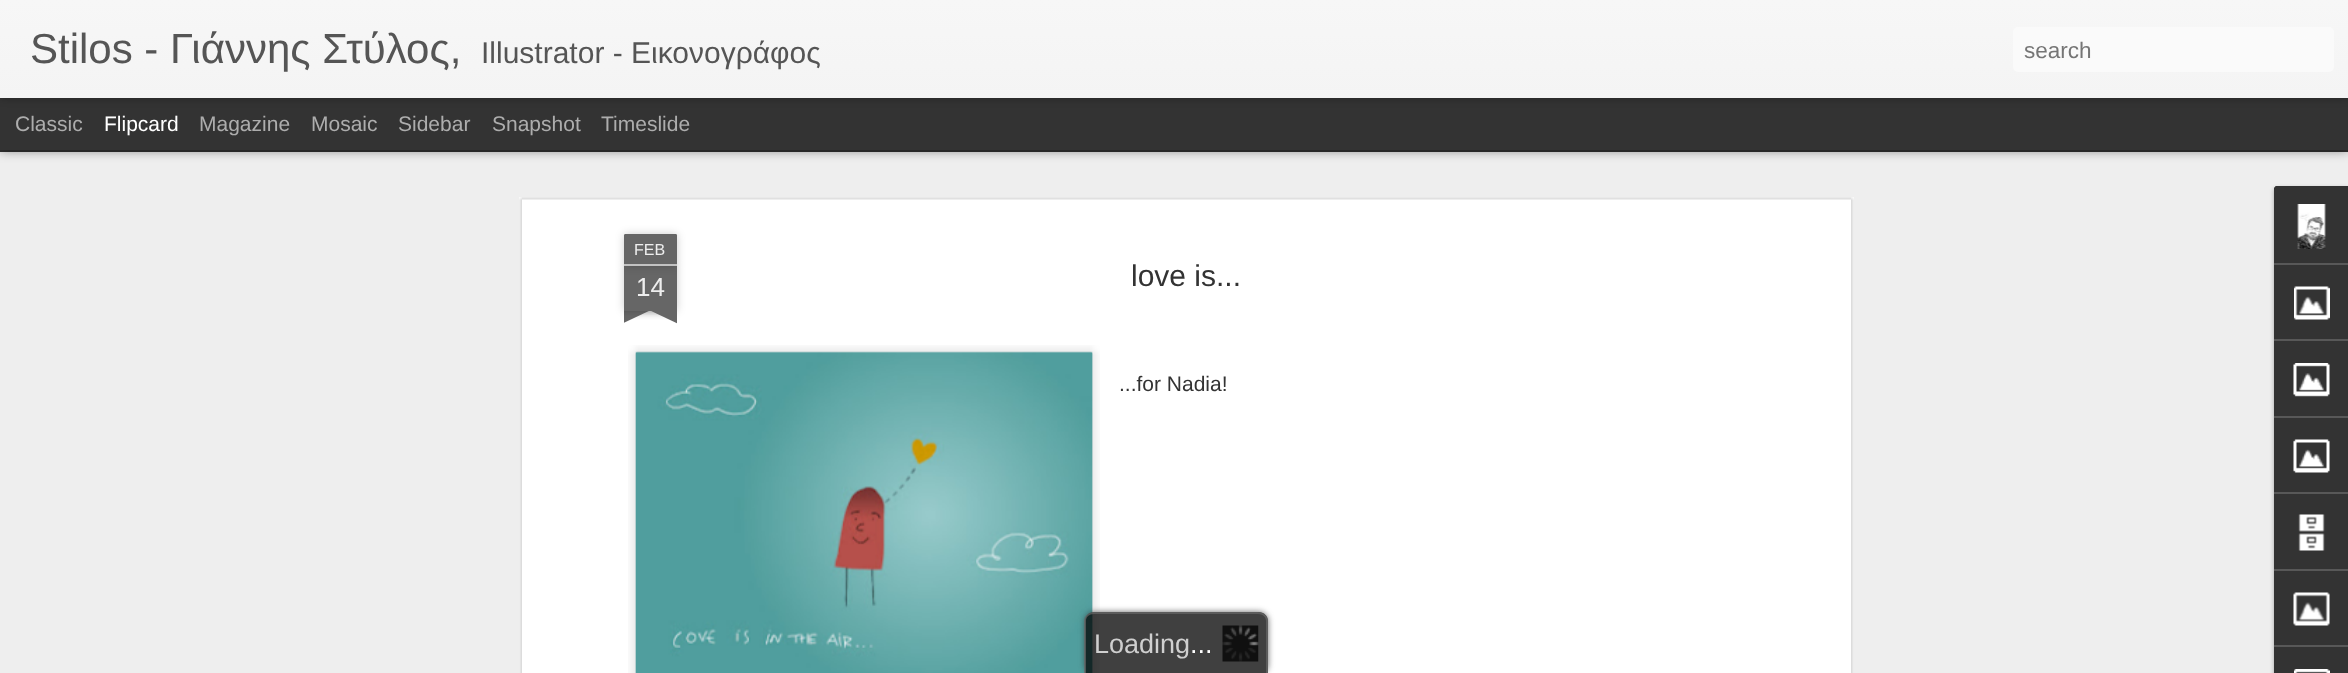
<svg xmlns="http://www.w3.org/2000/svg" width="2348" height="673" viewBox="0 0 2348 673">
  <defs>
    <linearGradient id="g1" gradientUnits="userSpaceOnUse" x1="0" y1="0" x2="0" y2="98"><stop offset="0" stop-color="#f7f7f7"/><stop offset="1" stop-color="#f4f4f4"/></linearGradient>
    <clipPath id="clip1"><path d="M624 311h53v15H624z"/></clipPath>
    <clipPath id="clip2"><path d="M624 311h53v15H624z"/></clipPath>
    <clipPath id="clip3"><path d="M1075 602H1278V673H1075ZM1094 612H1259C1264 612 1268 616 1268 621V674H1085V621C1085 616 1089 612 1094 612Z" clip-rule="evenodd"/></clipPath>
  </defs>
  <rect width="100%" height="100%" fill="#333"/>
  <path d="M0 152h2348v521H0z" fill="#eee"/>
  <path d="M0 98h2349v52H0z" fill="#00000080" filter="blur(6px)"/>
  <path d="M0 98h2348v52H0z" fill="#333"/>
  <path d="M0 0h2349v98H0z" fill="#0000004d" filter="blur(4px)"/>
  <path d="M0 0h2348v98H0z" fill="url(#g1)"/>
  <rect x="2013" y="27" width="321" height="45" rx="5" fill="#fafafa"/>
  <path d="M519 197h1335v476H519z" fill="#fff"/>
  <image x="519" y="197" width="1335" height="476" href="img/1.png"/>
  <path d="M624 266h53v45H624z" fill="#00000033" filter="blur(4px)"/>
  <path d="M624 266h53v45H624z" fill="#666"/>
  <rect x="624" y="234" width="53" height="32" rx="1.5" fill="#00000033" filter="blur(4px)"/>
  <path d="M625.5 234H675.5C676.5 234 677 234.5 677 235.5V266H624V235.5C624 234.5 624.5 234 625.5 234Z" fill="#666"/>
  <path d="M624 264h53v2H624z" fill="#c2c2c2"/>
  <g clip-path="url(#clip1)">
    <path d="M611 296h75v15H611z" fill="#00000033" filter="blur(4px)"/>
  </g>
  <g clip-path="url(#clip2)">
    <path d="M611 312L679 280L685 294L617 326Z" fill="#666"/>
  </g>
  <g clip-path="url(#clip1)">
    <path d="M615 296h75v15H615z" fill="#00000033" filter="blur(4px)"/>
  </g>
  <g clip-path="url(#clip2)">
    <path d="M622 280L690 312L683 326L615 294Z" fill="#666"/>
  </g>
  <image x="628" y="345" width="472" height="328" href="img/2.png"/>
  <image x="635" y="351" width="458" height="322" href="img/3.png"/>
  <rect x="2274" y="188" width="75" height="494" rx="3" fill="#0000004d" filter="blur(2px)"/>
  <path d="M2277 186H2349V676H2277C2275.5 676 2274 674.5 2274 673V189C2274 187.5 2275.5 186 2277 186Z" fill="#333"/>
  <path d="M2277 186H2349V263H2274V189C2274 187.5 2275.5 186 2277 186Z" fill="#333"/>
  <image x="2297" y="204" width="29" height="45" href="img/4.png"/>
  <path d="M2274 263h74v2H2274z" fill="#585858"/>
  <image x="2294" y="286" width="36" height="34" href="img/5.png"/>
  <path d="M2274 339h74v2H2274z" fill="#585858"/>
  <image x="2293" y="363" width="37" height="34" href="img/6.png"/>
  <path d="M2274 416h74v2H2274z" fill="#585858"/>
  <image x="2293" y="439" width="37" height="34" href="img/7.png"/>
  <path d="M2274 492h74v2H2274z" fill="#585858"/>
  <image x="2298" y="514" width="27" height="37" href="img/8.png"/>
  <path d="M2274 569h74v2H2274z" fill="#585858"/>
  <image x="2293" y="592" width="37" height="34" href="img/9.png"/>
  <path d="M2274 645h74v2H2274z" fill="#585858"/>
  <image x="2294" y="669" width="36" height="4" href="img/10.png"/>
  <g clip-path="url(#clip3)">
    <rect x="1085" y="612" width="183" height="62" rx="9" fill="#333333bf" filter="blur(3px)"/>
  </g>
  <path d="M1094 612H1259C1264 612 1268 616 1268 621V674H1085V621C1085 616 1089 612 1094 612Z" fill="#000000bf"/>
  <path d="M1094 612H1258C1263 612 1268 616 1268 621V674H1084V621C1084 616 1089 612 1094 612ZM1094 614H1258C1263 614 1266 617 1266 621V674H1086V621C1086 617 1089 614 1094 614Z" fill="#666666bf" fill-rule="evenodd"/>
  <image x="1222" y="625" width="37" height="37" href="img/11.png"/>
  <text x="30" y="63" font-family="Liberation Sans" font-size="42" fill="#555">Stilos - Γιάννης Στύλος,</text>
  <text x="481" y="63" font-family="Liberation Sans" font-size="30" fill="#555">Illustrator - Εικονογράφος</text>
  <text x="2024" y="58" font-family="Liberation Sans" font-size="22.5" fill="#757575">search</text>
  <text x="15" y="131" font-family="Liberation Sans" font-size="21" fill="#adadad">Classic</text>
  <text x="104" y="131" font-family="Liberation Sans" font-size="21" fill="#fff">Flipcard</text>
  <g font-family="Liberation Sans" font-size="21" fill="#adadad">
    <text x="199" y="131">Magazine</text>
    <text x="311" y="131">Mosaic</text>
    <text x="398" y="131">Sidebar</text>
    <text x="492" y="131">Snapshot</text>
    <text x="601" y="131">Timeslide</text>
  </g>
  <text x="634" y="255" font-family="Liberation Sans" font-size="16" fill="#eee">FEB</text>
  <text x="636" y="296" font-family="Liberation Sans" font-size="26" fill="#eee">14</text>
  <text x="1131" y="286" font-family="Liberation Sans" font-size="30" fill="#333">love is...</text>
  <text x="1119" y="391" font-family="Liberation Sans" font-size="21" fill="#333">...for Nadia!</text>
  <text x="1094" y="653" font-family="Liberation Sans" font-size="27" fill="#cfcfcf">Loading</text>
  <text x="1190" y="653" font-family="Liberation Sans" font-size="27" fill="#fff">...</text>
</svg>
